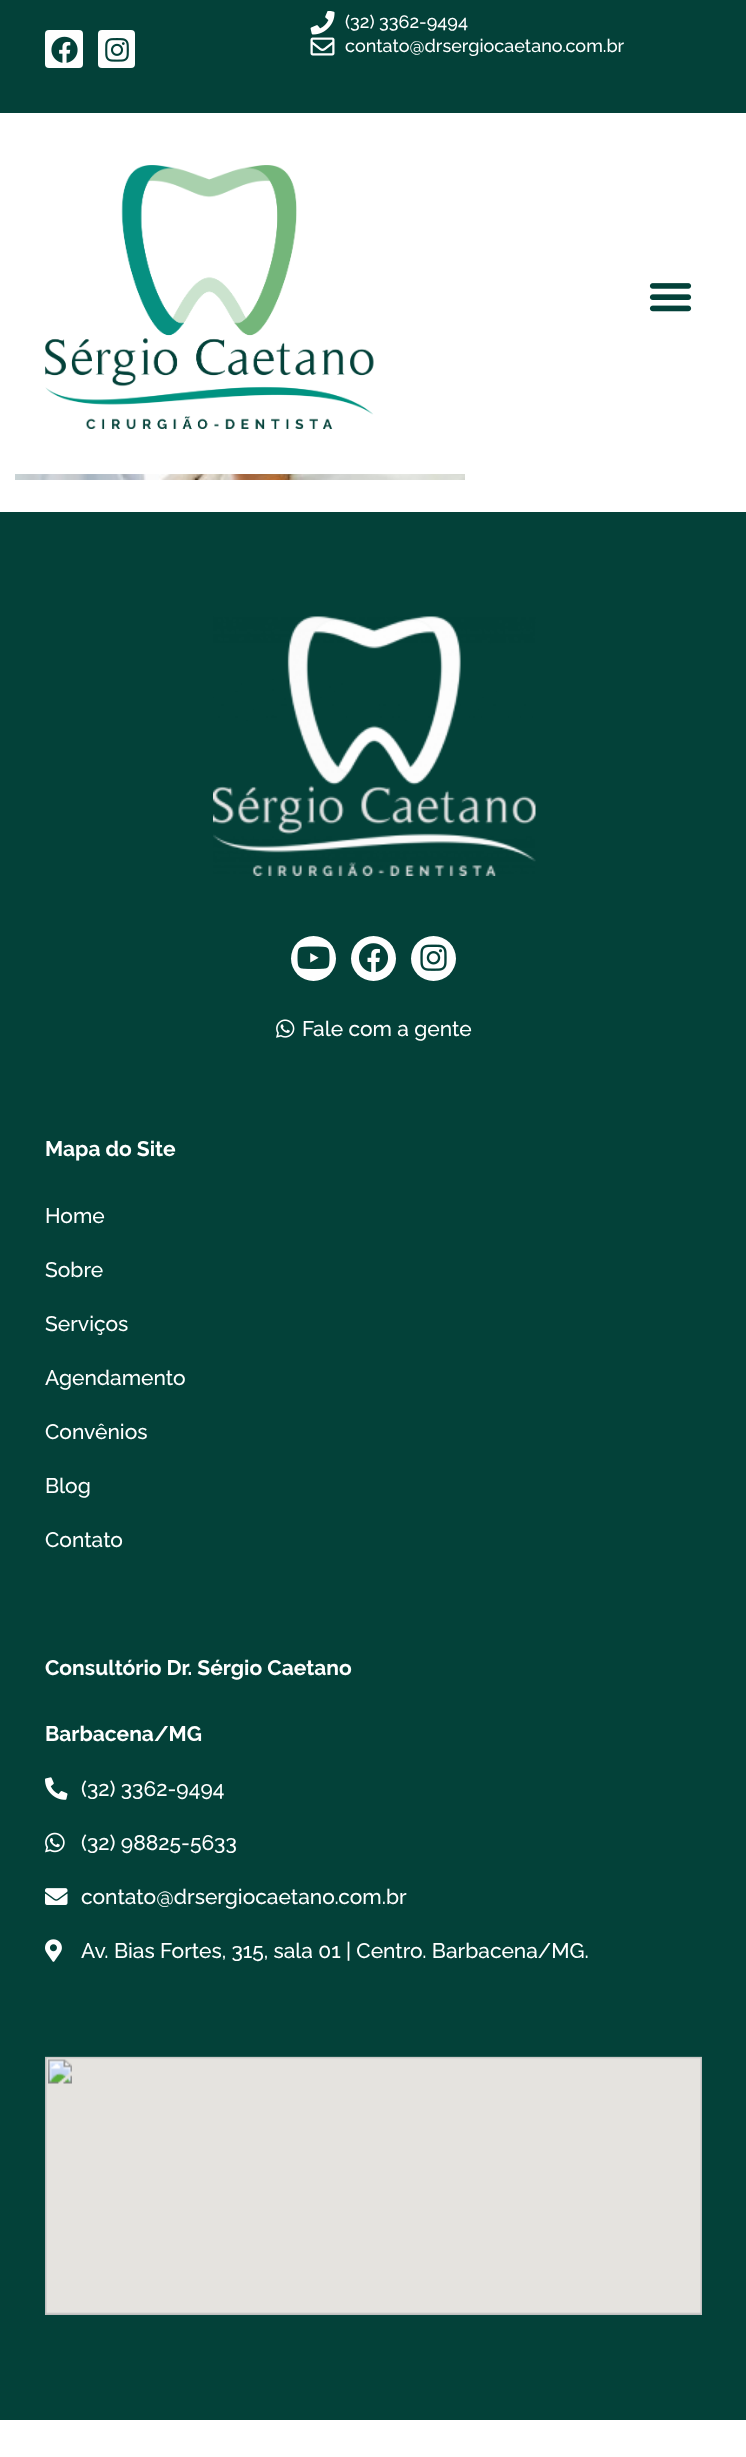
<svg xmlns="http://www.w3.org/2000/svg" width="746" height="2457" viewBox="0 0 746 2457">
  <rect width="100%" height="100%" fill="#fff"/>
  <path d="M0 0h746v113H0z" fill="#034139"/>
  <rect x="45" y="30" width="38" height="38" rx="4" fill="#fefefe"/>
  <image x="51" y="36" width="27" height="27" href="img/1.png"/>
  <rect x="98" y="30" width="37" height="38" rx="4" fill="#fefefe"/>
  <image x="105" y="38" width="24" height="24" href="img/2.png"/>
  <image x="310" y="11" width="25" height="24" href="img/3.png"/>
  <image x="310" y="37" width="25" height="19" href="img/4.png"/>
  <image x="45" y="165" width="329" height="264" href="img/5.png"/>
  <image x="649" y="283" width="43" height="29" href="img/6.png"/>
  <image x="15" y="474" width="450" height="6" href="img/7.png"/>
  <path d="M0 512h746v1908H0z" fill="#034139"/>
  <image x="213" y="616" width="323" height="260" href="img/8.png"/>
  <circle cx="313.5" cy="958.5" r="22.5" fill="#fefefe"/>
  <image x="297" y="946" width="33" height="23" href="img/9.png"/>
  <circle cx="373.5" cy="958.5" r="22.5" fill="#fefefe"/>
  <image x="359" y="943" width="29" height="29" href="img/10.png"/>
  <circle cx="433.5" cy="958.5" r="22.5" fill="#fefefe"/>
  <image x="420" y="944" width="27" height="27" href="img/11.png"/>
  <image x="276" y="1019" width="19" height="19" href="img/12.png"/>
  <image x="45" y="1777" width="23" height="23" href="img/13.png"/>
  <image x="45" y="1832" width="20" height="21" href="img/14.png"/>
  <image x="45" y="1888" width="23" height="17" href="img/15.png"/>
  <image x="45" y="1939" width="17" height="23" href="img/16.png"/>
  <image x="45" y="2056" width="657" height="259" href="img/17.png"/>
  <g font-family="Raleway" font-size="18" font-weight="500" fill="#fff">
    <text x="345" y="28">(32) 3362-9494</text>
    <text x="345" y="52">contato@drsergiocaetano.com.br</text>
  </g>
  <text x="302" y="1036" font-family="Raleway" font-size="21" font-weight="500" fill="#fff">Fale com a gente</text>
  <text x="45" y="1156" font-family="Raleway" font-size="21" font-weight="bold" fill="#fff">Mapa do Site</text>
  <g font-family="Raleway" font-size="21" font-weight="500" fill="#fff">
    <text x="45" y="1223">Home</text>
    <text x="45" y="1277">Sobre</text>
    <text x="45" y="1331">Serviços</text>
    <text x="45" y="1385">Agendamento</text>
    <text x="45" y="1439">Convênios</text>
    <text x="45" y="1493">Blog</text>
    <text x="45" y="1547">Contato</text>
  </g>
  <g font-family="Raleway" font-size="21" font-weight="bold" fill="#fff">
    <text x="45" y="1675">Consultório Dr. Sérgio Caetano</text>
    <text x="45" y="1741">Barbacena/MG</text>
  </g>
  <g font-family="Raleway" font-size="21" font-weight="500" fill="#fff">
    <text x="81" y="1796">(32) 3362-9494</text>
    <text x="81" y="1850">(32) 98825-5633</text>
    <text x="81" y="1904">contato@drsergiocaetano.com.br</text>
    <text x="81" y="1958">Av. Bias Fortes, 315, sala 01 | Centro. Barbacena/MG.</text>
  </g>
</svg>
